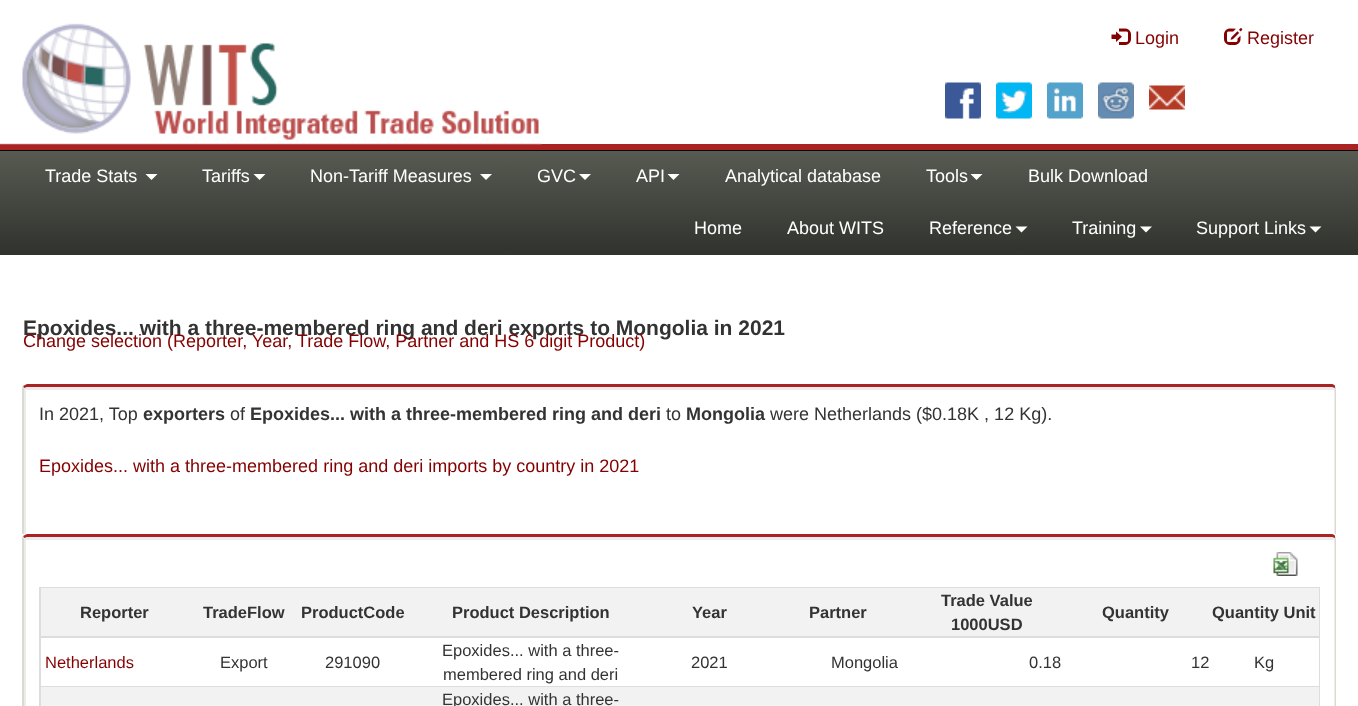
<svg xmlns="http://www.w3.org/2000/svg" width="1358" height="706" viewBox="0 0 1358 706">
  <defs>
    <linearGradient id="g1" gradientUnits="userSpaceOnUse" x1="680" y1="150" x2="680" y2="255"><stop offset="0" stop-color="#585b52"/><stop offset="1" stop-color="#30322d"/></linearGradient>
  </defs>
  <rect width="100%" height="100%" fill="#fff"/>
  <path d="M0 150h1358v1H0z" fill="#080808"/>
  <path d="M0 144h1358v6H0z" fill="#a22"/>
  <image x="0" y="23" width="542" height="122" href="img/1.png"/>
  <image x="1111" y="28" width="20" height="17" href="img/2.png"/>
  <image x="1224" y="28" width="19" height="17" href="img/3.png"/>
  <image x="945" y="82" width="36" height="37" href="img/4.png"/>
  <image x="996" y="82" width="36" height="37" href="img/5.png"/>
  <image x="1047" y="82" width="36" height="37" href="img/6.png"/>
  <image x="1098" y="82" width="36" height="37" href="img/7.png"/>
  <image x="1149" y="85" width="36" height="25" href="img/8.png"/>
  <path d="M0 151h1358v104H0z" fill="url(#g1)"/>
  <path d="M145.5 174H157.5L151.5 180Z" fill="#fff"/>
  <path d="M253.5 174H265.5L259.5 180Z" fill="#fff"/>
  <path d="M480 174H492L486 180Z" fill="#fff"/>
  <path d="M579 174H591L585 180Z" fill="#fff"/>
  <path d="M667.5 174H679.5L673.5 180Z" fill="#fff"/>
  <path d="M970.5 174H982.5L976.5 180Z" fill="#fff"/>
  <path d="M1015.5 226.5H1027.5L1021.5 232.5Z" fill="#fff"/>
  <path d="M1140 226.5H1152L1146 232.5Z" fill="#fff"/>
  <path d="M1309.5 226.5H1321.5L1315.5 232.5Z" fill="#fff"/>
  <path d="M27 387C25 387 24 388 24 388V604C24 606 25 607 26 607V390H1334V607C1334 606 1335 606 1335 604V388C1335 388 1334 387 1332 387Z" fill="#ebebeb"/>
  <path d="M27 384L23 386L24 388L27 387H1332L1335 388V386C1335 385 1333 384 1332 384Z" fill="#a22"/>
  <path d="M1335 386L1336 388V604L1335 607H1334L1335 604V388Z" fill="#d7dccf"/>
  <path d="M22 387L23 386L24 388V604L25 607L24 608L22 606Z" fill="#d7dccf"/>
  <path d="M22 534h1314v74H22z" fill="#fff"/>
  <path d="M27 537C25 537 24 538 24 538V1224C24 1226 25 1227 27 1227L26 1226V540H1334V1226L1332 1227C1334 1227 1335 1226 1335 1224V538C1335 538 1334 537 1332 537Z" fill="#ebebeb"/>
  <path d="M27 534L23 536L24 538L27 537H1332L1335 538V536C1335 535 1333 534 1332 534Z" fill="#a22"/>
  <path d="M1335 536L1336 538V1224L1335 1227L1334 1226L1335 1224V538Z" fill="#d7dccf"/>
  <path d="M22 537L23 536L24 538V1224L25 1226L24 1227L22 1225Z" fill="#d7dccf"/>
  <image x="1273" y="552" width="25" height="24" href="img/9.png"/>
  <path d="M40 588h1279v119H40z" fill="none" stroke="#ddd" stroke-width="2"/>
  <path d="M41 588h1278v48H41z" fill="#f2f2f2"/>
  <path d="M41 636h1278v2H41z" fill="#ddd"/>
  <path d="M1318 638h1v48H1318z" fill="#fff"/>
  <path d="M41 686h1278v1H41z" fill="#ddd"/>
  <path d="M41 687h1278v19H41z" fill="#f2f2f2"/>
  <g font-family="Liberation Sans" font-size="18" fill="#850000">
    <text x="1135" y="44">Login</text>
    <text x="1247" y="44">Register</text>
  </g>
  <g font-family="Liberation Sans" font-size="18" fill="#fff">
    <text x="45" y="182">Trade Stats</text>
    <text x="202" y="182">Tariffs</text>
    <text x="310" y="182">Non-Tariff Measures</text>
    <text x="537" y="182">GVC</text>
    <text x="636" y="182">API</text>
    <text x="725" y="182">Analytical database</text>
    <text x="926" y="182">Tools</text>
    <text x="1028" y="182">Bulk Download</text>
    <text x="694" y="234">Home</text>
    <text x="787" y="234">About WITS</text>
    <text x="929" y="234">Reference</text>
    <text x="1072" y="234">Training</text>
    <text x="1196" y="234">Support Links</text>
  </g>
  <text x="23" y="335" font-family="Liberation Sans" font-size="21" font-weight="bold" fill="#333">Epoxides... with a three-membered ring and deri exports to Mongolia in 2021</text>
  <text x="23" y="347" font-family="Liberation Sans" font-size="18" fill="#850000">Change selection (Reporter, Year, Trade Flow, Partner and HS 6 digit Product)</text>
  <text x="39" y="420" font-family="Liberation Sans" font-size="18" fill="#333">In 2021, Top</text>
  <text x="143" y="420" font-family="Liberation Sans" font-size="18" font-weight="bold" fill="#333">exporters</text>
  <text x="230" y="420" font-family="Liberation Sans" font-size="18" fill="#333">of</text>
  <text x="250" y="420" font-family="Liberation Sans" font-size="18" font-weight="bold" fill="#333">Epoxides... with a three-membered ring and deri</text>
  <text x="666" y="420" font-family="Liberation Sans" font-size="18" fill="#333">to</text>
  <text x="686" y="420" font-family="Liberation Sans" font-size="18" font-weight="bold" fill="#333">Mongolia</text>
  <text x="770" y="420" font-family="Liberation Sans" font-size="18" fill="#333">were Netherlands ($0.18K , 12 Kg).</text>
  <text x="39" y="472" font-family="Liberation Sans" font-size="18" fill="#850000">Epoxides... with a three-membered ring and deri imports by country in 2021</text>
  <g font-family="Liberation Sans" font-size="16.5" font-weight="bold" fill="#333">
    <text x="80" y="618">Reporter</text>
    <text x="203" y="618">TradeFlow</text>
    <text x="301" y="618">ProductCode</text>
    <text x="452" y="618">Product Description</text>
    <text x="692" y="618">Year</text>
    <text x="809" y="618">Partner</text>
    <text x="941" y="606">Trade Value</text>
    <text x="951" y="630">1000USD</text>
    <text x="1102" y="618">Quantity</text>
    <text x="1212" y="618">Quantity Unit</text>
  </g>
  <text x="45" y="668" font-family="Liberation Sans" font-size="16.5" fill="#850000">Netherlands</text>
  <g font-family="Liberation Sans" font-size="16.5" fill="#333">
    <text x="220" y="668">Export</text>
    <text x="325" y="668">291090</text>
    <text x="442" y="656">Epoxides... with a three-</text>
    <text x="443" y="680">membered ring and deri</text>
    <text x="691" y="668">2021</text>
    <text x="831" y="668">Mongolia</text>
    <text x="1029" y="668">0.18</text>
    <text x="1191" y="668">12</text>
    <text x="1254" y="668">Kg</text>
    <text x="442" y="705">Epoxides... with a three-</text>
  </g>
</svg>
